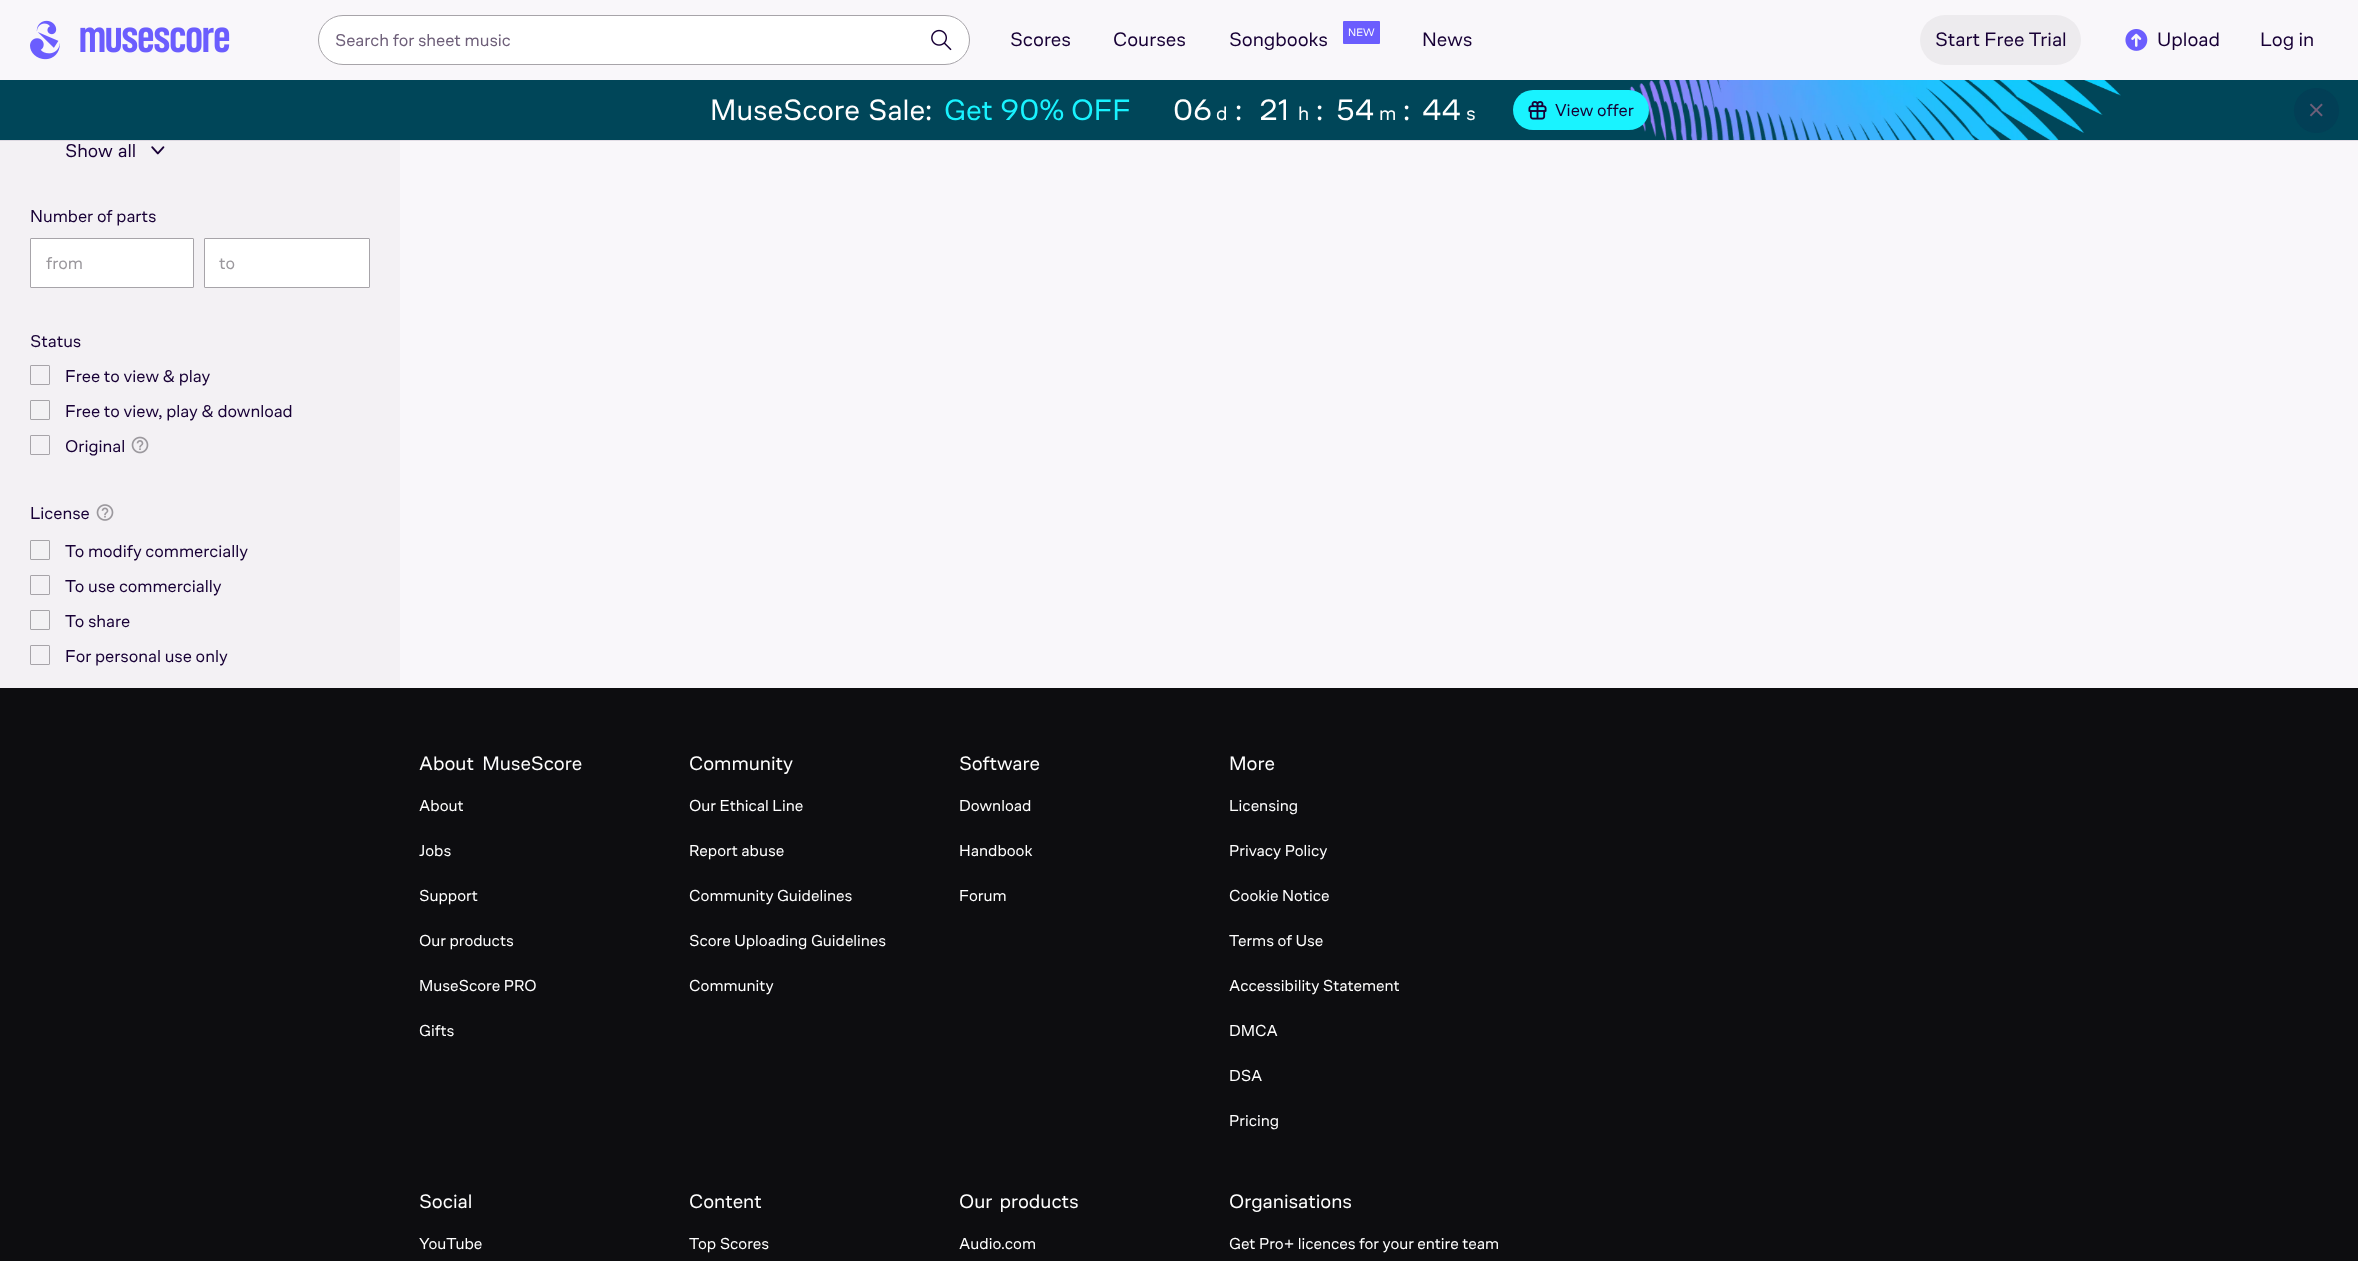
<svg xmlns="http://www.w3.org/2000/svg" width="2358" height="1261" viewBox="0 0 2358 1261">
  <rect width="100%" height="100%" fill="#f9f7fa"/>
  <path d="M400 140h1958v1H400z" fill="#e3dee6"/>
  <image x="30" y="20" width="200" height="40" href="img/1.png"/>
  <rect x="318.5" y="15.5" width="651" height="49" rx="24.5" fill="#fff" stroke="#a7a4a9"/>
  <image x="931" y="29" width="21" height="22" href="img/2.png"/>
  <rect x="1343" y="21" width="37" height="23" rx="1" fill="#6b5dfe"/>
  <rect x="1920" y="15" width="161" height="50" rx="25" fill="#edebee"/>
  <image x="2125" y="29" width="23" height="22" href="img/3.png"/>
  <path d="M0 80h2358v60H0z" fill="#004659"/>
  <image x="1629" y="80" width="492" height="60" href="img/5.png"/>
  <rect x="1513" y="90" width="136" height="40" rx="20" fill="#19f3ff"/>
  <image x="1528" y="101" width="19" height="19" href="img/4.png"/>
  <circle cx="2316.5" cy="110.5" r="22.5" fill="#023f56"/>
  <image x="2309" y="103" width="14" height="14" href="img/6.png"/>
  <path d="M0 141h400v547H0z" fill="#f3f1f4"/>
  <path d="M0 140h400v1H0z" fill="#ddd9e1"/>
  <image x="151" y="146" width="14" height="9" href="img/7.png"/>
  <rect x="30.5" y="238.5" width="163" height="49" rx="0.5" fill="#fff" stroke="#a7a4a9"/>
  <rect x="204.5" y="238.5" width="165" height="49" rx="0.5" fill="#fff" stroke="#a7a4a9"/>
  <rect x="30.5" y="365.5" width="19" height="19" rx="0.5" fill="none" stroke="#a7a4a9"/>
  <rect x="30.5" y="400.5" width="19" height="19" rx="0.5" fill="none" stroke="#a7a4a9"/>
  <rect x="30.5" y="435.5" width="19" height="19" rx="0.5" fill="none" stroke="#a7a4a9"/>
  <image x="131" y="436" width="18" height="18" href="img/8.png"/>
  <image x="96" y="504" width="18" height="17" href="img/9.png"/>
  <rect x="30.5" y="540.5" width="19" height="19" rx="0.5" fill="none" stroke="#a7a4a9"/>
  <rect x="30.5" y="575.5" width="19" height="19" rx="0.5" fill="none" stroke="#a7a4a9"/>
  <rect x="30.5" y="610.5" width="19" height="19" rx="0.5" fill="none" stroke="#a7a4a9"/>
  <rect x="30.5" y="645.5" width="19" height="19" rx="0.5" fill="none" stroke="#a7a4a9"/>
  <path d="M0 688h2358v573H0z" fill="#0d0d10"/>
  <text x="335" y="46" font-family="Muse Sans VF" font-size="17.5" fill="#6e5f79">Search for sheet music</text>
  <g font-family="Muse Sans VF" font-size="20" fill="#180036">
    <text x="1010" y="46">Scores</text>
    <text x="1113" y="46">Courses</text>
    <text x="1229" y="46">Songbooks</text>
  </g>
  <text x="1348" y="36" font-family="Muse Sans VF" font-size="11" fill="#fff">NEW</text>
  <g font-family="Muse Sans VF" font-size="20" fill="#180036">
    <text x="1422" y="46">News</text>
    <text x="1935" y="46">Start Free Trial</text>
    <text x="2157" y="46">Upload</text>
    <text x="2260" y="46">Log in</text>
  </g>
  <g font-family="Muse Sans VF" font-size="30" fill="#fff">
    <text x="710" y="120">MuseScore</text>
    <text x="868" y="120">Sale:</text>
  </g>
  <g font-family="Muse Sans VF" font-size="30" fill="#19f3ff">
    <text x="944" y="120">Get</text>
    <text x="1000" y="120">90%</text>
    <text x="1071" y="120">OFF</text>
  </g>
  <text x="1173" y="120" font-family="Muse Sans VF" font-size="30" fill="#fff">06</text>
  <text x="1216" y="120" font-family="Muse Sans VF" font-size="20" fill="#fff">d</text>
  <g font-family="Muse Sans VF" font-size="30" fill="#fff">
    <text x="1235" y="120">:</text>
    <text x="1259" y="120">21</text>
  </g>
  <text x="1298" y="120" font-family="Muse Sans VF" font-size="20" fill="#fff">h</text>
  <g font-family="Muse Sans VF" font-size="30" fill="#fff">
    <text x="1316" y="120">:</text>
    <text x="1336" y="120">54</text>
  </g>
  <text x="1379" y="120" font-family="Muse Sans VF" font-size="20" fill="#fff">m</text>
  <g font-family="Muse Sans VF" font-size="30" fill="#fff">
    <text x="1403" y="120">:</text>
    <text x="1422" y="120">44</text>
  </g>
  <text x="1466" y="120" font-family="Muse Sans VF" font-size="20" fill="#fff">s</text>
  <text x="1555" y="116" font-family="Muse Sans VF" font-size="17.5" fill="#180036">View offer</text>
  <text x="65" y="157" word-spacing="1" font-family="Muse Sans VF" font-size="19" fill="#180036">Show all</text>
  <g font-family="Muse Sans VF" font-size="17.5" fill="#180036">
    <text x="30" y="222">Number</text>
    <text x="97" y="222">of parts</text>
  </g>
  <g font-family="Muse Sans VF" font-size="17.5" fill="#9b989d">
    <text x="46" y="269">from</text>
    <text x="219" y="269">to</text>
  </g>
  <g font-family="Muse Sans VF" font-size="17.5" fill="#180036">
    <text x="30" y="347">Status</text>
    <text x="65" y="382">Free to view &amp; play</text>
    <text x="65" y="417">Free to view, play &amp; download</text>
    <text x="65" y="452">Original</text>
    <text x="30" y="519">License</text>
    <text x="65" y="557">To modify commercially</text>
    <text x="65" y="592">To use commercially</text>
    <text x="65" y="627">To share</text>
    <text x="65" y="662">For personal use only</text>
  </g>
  <text x="419" y="770" word-spacing="4" font-family="Muse Sans VF" font-size="20" fill="#fff">About MuseScore</text>
  <g font-family="Muse Sans VF" font-size="16.25" fill="#fff">
    <text x="419" y="811">About</text>
    <text x="419" y="856">Jobs</text>
    <text x="419" y="901">Support</text>
    <text x="419" y="946">Our products</text>
    <text x="419" y="991">MuseScore PRO</text>
    <text x="419" y="1036">Gifts</text>
  </g>
  <text x="689" y="770" font-family="Muse Sans VF" font-size="20" fill="#fff">Community</text>
  <g font-family="Muse Sans VF" font-size="16.25" fill="#fff">
    <text x="689" y="811">Our Ethical Line</text>
    <text x="689" y="856">Report abuse</text>
    <text x="689" y="901">Community Guidelines</text>
    <text x="689" y="946">Score Uploading Guidelines</text>
    <text x="689" y="991">Community</text>
  </g>
  <text x="959" y="770" font-family="Muse Sans VF" font-size="20" fill="#fff">Software</text>
  <g font-family="Muse Sans VF" font-size="16.25" fill="#fff">
    <text x="959" y="811">Download</text>
    <text x="959" y="856">Handbook</text>
    <text x="959" y="901">Forum</text>
  </g>
  <text x="1229" y="770" font-family="Muse Sans VF" font-size="20" fill="#fff">More</text>
  <g font-family="Muse Sans VF" font-size="16.25" fill="#fff">
    <text x="1229" y="811">Licensing</text>
    <text x="1229" y="856">Privacy Policy</text>
    <text x="1229" y="901">Cookie Notice</text>
    <text x="1229" y="946">Terms of Use</text>
    <text x="1229" y="991">Accessibility Statement</text>
    <text x="1229" y="1036">DMCA</text>
    <text x="1229" y="1081">DSA</text>
    <text x="1229" y="1126">Pricing</text>
  </g>
  <text x="419" y="1208" font-family="Muse Sans VF" font-size="20" fill="#fff">Social</text>
  <text x="419" y="1249" font-family="Muse Sans VF" font-size="16.25" fill="#fff">YouTube</text>
  <text x="689" y="1208" font-family="Muse Sans VF" font-size="20" fill="#fff">Content</text>
  <text x="689" y="1249" font-family="Muse Sans VF" font-size="16.25" fill="#fff">Top Scores</text>
  <text x="959" y="1208" word-spacing="3" font-family="Muse Sans VF" font-size="20" fill="#fff">Our products</text>
  <text x="959" y="1249" font-family="Muse Sans VF" font-size="16.25" fill="#fff">Audio.com</text>
  <text x="1229" y="1208" font-family="Muse Sans VF" font-size="20" fill="#fff">Organisations</text>
  <text x="1229" y="1249" font-family="Muse Sans VF" font-size="16.25" fill="#fff">Get Pro+ licences for your entire team</text>
</svg>
